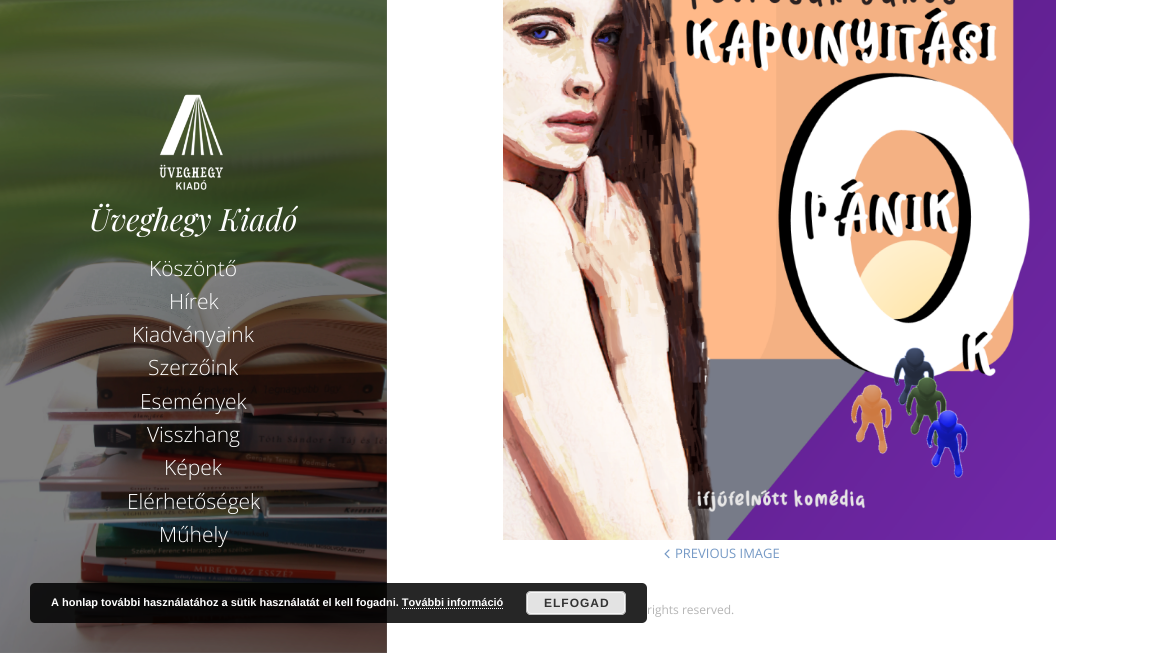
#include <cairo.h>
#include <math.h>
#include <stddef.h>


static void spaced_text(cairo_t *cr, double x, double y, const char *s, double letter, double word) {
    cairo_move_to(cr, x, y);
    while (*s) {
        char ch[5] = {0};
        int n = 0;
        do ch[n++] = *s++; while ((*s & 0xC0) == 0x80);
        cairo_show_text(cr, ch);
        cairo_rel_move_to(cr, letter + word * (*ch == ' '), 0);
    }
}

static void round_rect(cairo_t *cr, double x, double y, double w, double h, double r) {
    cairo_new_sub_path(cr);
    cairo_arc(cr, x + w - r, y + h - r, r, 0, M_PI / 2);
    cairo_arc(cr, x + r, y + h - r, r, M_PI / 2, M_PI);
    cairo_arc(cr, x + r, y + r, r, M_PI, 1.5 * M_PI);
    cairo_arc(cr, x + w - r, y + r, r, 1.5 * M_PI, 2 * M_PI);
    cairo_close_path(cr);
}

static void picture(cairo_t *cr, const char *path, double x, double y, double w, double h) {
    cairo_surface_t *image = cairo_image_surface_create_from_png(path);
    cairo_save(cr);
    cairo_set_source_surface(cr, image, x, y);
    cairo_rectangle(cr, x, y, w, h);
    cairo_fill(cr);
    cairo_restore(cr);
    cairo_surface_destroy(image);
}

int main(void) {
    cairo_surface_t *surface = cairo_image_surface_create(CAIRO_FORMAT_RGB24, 1172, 653);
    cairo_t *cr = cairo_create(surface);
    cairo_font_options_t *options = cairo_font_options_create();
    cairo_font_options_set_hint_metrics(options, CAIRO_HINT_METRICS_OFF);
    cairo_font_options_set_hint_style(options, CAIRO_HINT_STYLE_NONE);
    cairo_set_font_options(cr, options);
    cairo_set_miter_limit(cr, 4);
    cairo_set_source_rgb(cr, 1, 1, 1);
    cairo_paint(cr);
    cairo_set_source_rgb(cr, 0.502, 0.502, 0.502);
    cairo_rectangle(cr, 0, 0, 387, 653);
    cairo_fill(cr);
    picture(cr, "img1.png", 0, 0, 387, 653);
    picture(cr, "img2.png", 159, 94, 65, 96);
    cairo_select_font_face(cr, "Playfair Display", CAIRO_FONT_SLANT_ITALIC, CAIRO_FONT_WEIGHT_NORMAL);
    cairo_set_font_size(cr, 30.75);
    cairo_set_source_rgb(cr, 1, 1, 1);
    cairo_move_to(cr, 89, 231);
    cairo_show_text(cr, "Üveghegy Kiadó");
    cairo_select_font_face(cr, "Open Sans Light", CAIRO_FONT_SLANT_NORMAL, CAIRO_FONT_WEIGHT_NORMAL);
    cairo_set_font_size(cr, 21);
    cairo_move_to(cr, 149, 276);
    cairo_show_text(cr, "Köszöntő");
    cairo_move_to(cr, 169, 309);
    cairo_show_text(cr, "Hírek");
    cairo_move_to(cr, 132, 342);
    cairo_show_text(cr, "Kiadványaink");
    cairo_move_to(cr, 148, 375);
    cairo_show_text(cr, "Szerzőink");
    cairo_move_to(cr, 140, 409);
    cairo_show_text(cr, "Események");
    cairo_move_to(cr, 147, 442);
    cairo_show_text(cr, "Visszhang");
    cairo_move_to(cr, 164, 475);
    cairo_show_text(cr, "Képek");
    cairo_move_to(cr, 127, 509);
    cairo_show_text(cr, "Elérhetőségek");
    cairo_move_to(cr, 159, 542);
    cairo_show_text(cr, "Műhely");
    picture(cr, "img3.png", 503, 0, 553, 540);
    picture(cr, "img4.png", 664, 549, 6, 10);
    cairo_select_font_face(cr, "Open Sans", CAIRO_FONT_SLANT_NORMAL, CAIRO_FONT_WEIGHT_NORMAL);
    cairo_set_font_size(cr, 13);
    cairo_set_source_rgb(cr, 0.459, 0.6, 0.773);
    cairo_move_to(cr, 675, 558);
    cairo_show_text(cr, "PREVIOUS IMAGE");
    cairo_set_font_size(cr, 12);
    cairo_set_source_rgb(cr, 0.71, 0.71, 0.71);
    cairo_move_to(cr, 647, 614);
    cairo_show_text(cr, "rights reserved.");
    cairo_set_source_rgba(cr, 0, 0, 0, 0.85);
    round_rect(cr, 30, 583, 617, 40, 5);
    cairo_fill(cr);
    cairo_select_font_face(cr, "Liberation Sans", CAIRO_FONT_SLANT_NORMAL, CAIRO_FONT_WEIGHT_BOLD);
    cairo_set_font_size(cr, 11);
    cairo_set_source_rgb(cr, 1, 1, 1);
    cairo_move_to(cr, 51, 606);
    cairo_show_text(cr, "A honlap további használatához a sütik használatát el kell fogadni. További információ");
    cairo_set_source_rgb(cr, 0.89, 0.89, 0.89);
    round_rect(cr, 526, 591, 100, 24, 5);
    cairo_fill(cr);
    round_rect(cr, 527.5, 592.5, 97, 21, 3.5);
    cairo_set_source_rgb(cr, 0.965, 0.965, 0.965);
    cairo_set_line_width(cr, 1);
    cairo_stroke(cr);
    round_rect(cr, 526.5, 591.5, 99, 23, 4.5);
    cairo_set_source_rgb(cr, 0.733, 0.733, 0.733);
    cairo_stroke(cr);
    cairo_set_font_size(cr, 12);
    cairo_set_source_rgb(cr, 0.2, 0.2, 0.2);
    spaced_text(cr, 544, 607, "ELFOGAD", 1, 0);
    cairo_new_path(cr);
    cairo_move_to(cr, 402, 608.5);
    cairo_line_to(cr, 503, 608.5);
    cairo_set_source_rgb(cr, 1, 1, 1);
    cairo_set_dash(cr, (double[]){1, 1}, 2, 0);
    cairo_stroke(cr);
    cairo_surface_write_to_png(surface, "page.png");
    cairo_font_options_destroy(options);
    cairo_destroy(cr);
    cairo_surface_destroy(surface);
    return 0;
}
